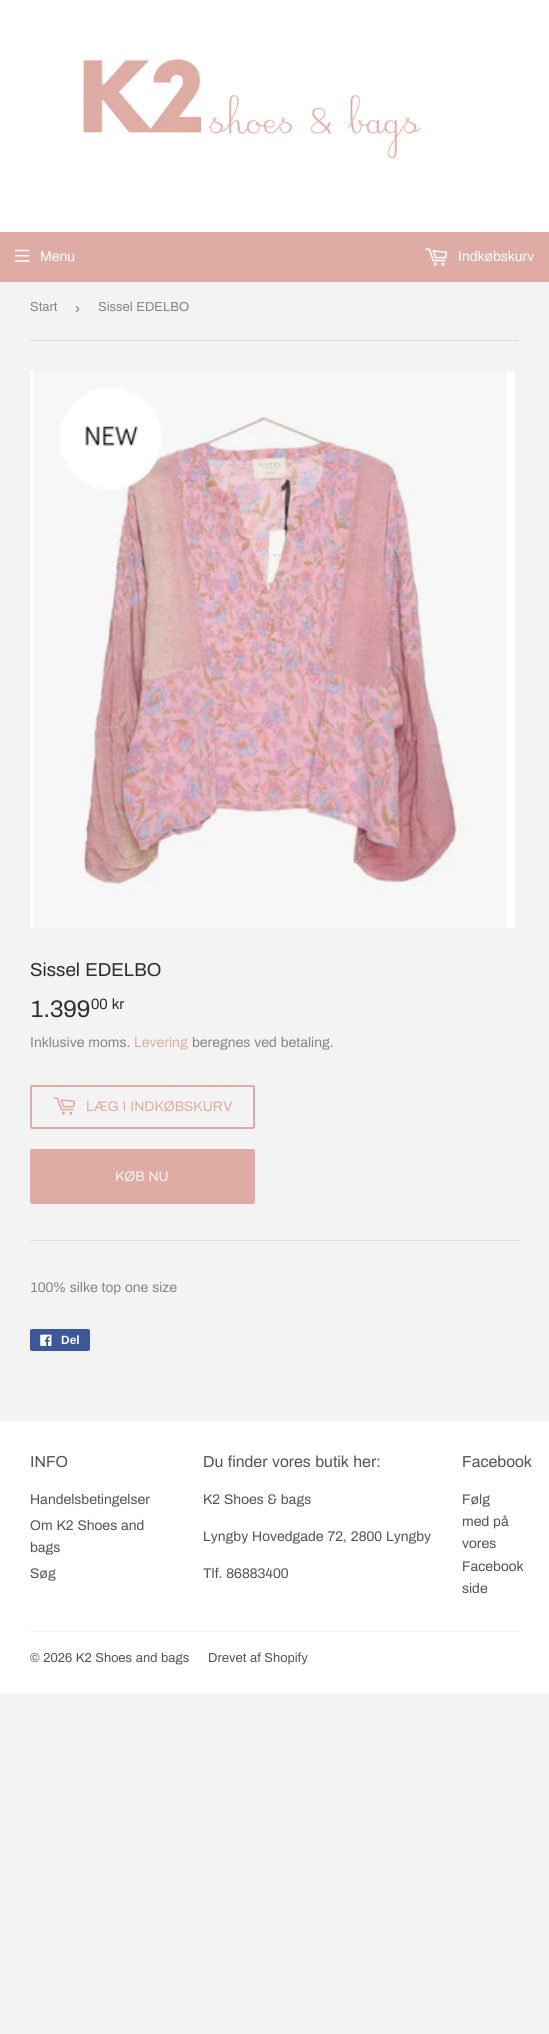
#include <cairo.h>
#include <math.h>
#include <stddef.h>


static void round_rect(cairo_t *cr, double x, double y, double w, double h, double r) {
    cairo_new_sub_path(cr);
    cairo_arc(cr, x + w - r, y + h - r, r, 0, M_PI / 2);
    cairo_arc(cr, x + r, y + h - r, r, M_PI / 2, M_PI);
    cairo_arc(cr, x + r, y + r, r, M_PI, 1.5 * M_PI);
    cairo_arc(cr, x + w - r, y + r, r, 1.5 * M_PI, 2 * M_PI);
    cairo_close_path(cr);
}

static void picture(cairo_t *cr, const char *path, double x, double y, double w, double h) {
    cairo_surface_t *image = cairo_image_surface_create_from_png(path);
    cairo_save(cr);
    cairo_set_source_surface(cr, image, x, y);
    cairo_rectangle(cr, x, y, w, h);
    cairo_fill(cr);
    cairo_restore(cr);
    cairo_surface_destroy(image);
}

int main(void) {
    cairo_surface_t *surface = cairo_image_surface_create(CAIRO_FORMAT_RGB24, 549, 2034);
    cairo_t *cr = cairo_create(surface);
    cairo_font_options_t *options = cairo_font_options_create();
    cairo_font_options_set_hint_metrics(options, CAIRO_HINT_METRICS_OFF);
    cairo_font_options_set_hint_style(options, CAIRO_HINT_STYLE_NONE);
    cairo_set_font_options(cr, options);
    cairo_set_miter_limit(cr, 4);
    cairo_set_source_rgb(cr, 0.953, 0.953, 0.953);
    cairo_paint(cr);
    cairo_set_source_rgb(cr, 1, 1, 1);
    cairo_rectangle(cr, 0, 0, 549, 232);
    cairo_fill(cr);
    picture(cr, "img1.png", 83, 59, 339, 100);
    cairo_set_source_rgb(cr, 0.871, 0.675, 0.643);
    cairo_rectangle(cr, 0, 232, 549, 50);
    cairo_fill(cr);
    picture(cr, "img2.png", 15, 249, 15, 13);
    cairo_select_font_face(cr, "Archivo", CAIRO_FONT_SLANT_NORMAL, CAIRO_FONT_WEIGHT_NORMAL);
    cairo_set_font_size(cr, 14);
    cairo_set_source_rgb(cr, 1, 1, 1);
    cairo_move_to(cr, 40, 261);
    cairo_show_text(cr, "Menu");
    picture(cr, "img3.png", 425, 248, 23, 18);
    cairo_move_to(cr, 458, 261);
    cairo_show_text(cr, "Indkøbskurv");
    cairo_set_source_rgb(cr, 0.871, 0.871, 0.871);
    cairo_rectangle(cr, 30, 340, 489, 1);
    cairo_fill(cr);
    cairo_set_font_size(cr, 13);
    cairo_set_source_rgb(cr, 0.522, 0.522, 0.522);
    cairo_move_to(cr, 30, 311);
    cairo_show_text(cr, "Start");
    cairo_select_font_face(cr, "Liberation Sans", CAIRO_FONT_SLANT_NORMAL, CAIRO_FONT_WEIGHT_NORMAL);
    cairo_set_font_size(cr, 15);
    cairo_set_source_rgb(cr, 0.463, 0.463, 0.463);
    cairo_move_to(cr, 75, 313);
    cairo_show_text(cr, "›");
    cairo_select_font_face(cr, "Archivo", CAIRO_FONT_SLANT_NORMAL, CAIRO_FONT_WEIGHT_NORMAL);
    cairo_set_font_size(cr, 13);
    cairo_set_source_rgb(cr, 0.522, 0.522, 0.522);
    cairo_move_to(cr, 98, 311);
    cairo_show_text(cr, "Sissel EDELBO");
    picture(cr, "img4.png", 30, 371, 485, 557);
    cairo_set_font_size(cr, 18.75);
    cairo_set_source_rgb(cr, 0.184, 0.184, 0.184);
    cairo_move_to(cr, 30, 976);
    cairo_show_text(cr, "Sissel EDELBO");
    cairo_set_font_size(cr, 24);
    cairo_move_to(cr, 30, 1017);
    cairo_show_text(cr, "1.399");
    cairo_set_font_size(cr, 15);
    cairo_move_to(cr, 91, 1009);
    cairo_show_text(cr, "00 kr");
    cairo_set_font_size(cr, 14);
    cairo_set_source_rgb(cr, 0.522, 0.522, 0.522);
    cairo_move_to(cr, 30, 1047);
    cairo_show_text(cr, "Inklusive moms.");
    cairo_set_source_rgb(cr, 0.871, 0.675, 0.643);
    cairo_move_to(cr, 134, 1047);
    cairo_show_text(cr, "Levering");
    cairo_set_source_rgb(cr, 0.522, 0.522, 0.522);
    cairo_move_to(cr, 192, 1047);
    cairo_show_text(cr, "beregnes ved betaling.");
    round_rect(cr, 31, 1086, 223, 42, 1);
    cairo_set_source_rgb(cr, 0.871, 0.675, 0.643);
    cairo_stroke(cr);
    picture(cr, "img5.png", 53, 1097, 23, 18);
    cairo_move_to(cr, 86, 1111);
    cairo_show_text(cr, "LÆG I INDKØBSKURV");
    round_rect(cr, 30, 1149, 225, 55, 2);
    cairo_fill(cr);
    cairo_set_source_rgb(cr, 0.953, 0.953, 0.953);
    cairo_move_to(cr, 115, 1181);
    cairo_show_text(cr, "KØB NU");
    cairo_set_source_rgb(cr, 0.871, 0.871, 0.871);
    cairo_rectangle(cr, 30, 1240, 489, 1);
    cairo_fill(cr);
    cairo_set_source_rgb(cr, 0.522, 0.522, 0.522);
    cairo_move_to(cr, 30, 1292);
    cairo_show_text(cr, "100% silke top one size");
    cairo_set_source_rgb(cr, 0.231, 0.349, 0.596);
    round_rect(cr, 30, 1329, 60, 22, 2);
    cairo_fill(cr);
    picture(cr, "img6.png", 40, 1334, 12, 12);
    cairo_select_font_face(cr, "Liberation Sans", CAIRO_FONT_SLANT_NORMAL, CAIRO_FONT_WEIGHT_BOLD);
    cairo_set_font_size(cr, 12);
    cairo_set_source_rgb(cr, 1, 1, 1);
    cairo_move_to(cr, 61, 1344);
    cairo_show_text(cr, "Del");
    cairo_rectangle(cr, 0, 1421, 549, 273);
    cairo_fill(cr);
    cairo_select_font_face(cr, "Archivo", CAIRO_FONT_SLANT_NORMAL, CAIRO_FONT_WEIGHT_NORMAL);
    cairo_set_font_size(cr, 15.9);
    cairo_set_source_rgb(cr, 0.329, 0.329, 0.329);
    cairo_move_to(cr, 30, 1467);
    cairo_show_text(cr, "INFO");
    cairo_set_font_size(cr, 14);
    cairo_move_to(cr, 30, 1504);
    cairo_show_text(cr, "Handelsbetingelser");
    cairo_move_to(cr, 30, 1530);
    cairo_show_text(cr, "Om K2 Shoes and");
    cairo_move_to(cr, 30, 1552);
    cairo_show_text(cr, "bags");
    cairo_move_to(cr, 30, 1578);
    cairo_show_text(cr, "Søg");
    cairo_set_font_size(cr, 15.9);
    cairo_move_to(cr, 203, 1467);
    cairo_show_text(cr, "Du finder vores butik her:");
    cairo_set_font_size(cr, 14);
    cairo_move_to(cr, 203, 1504);
    cairo_show_text(cr, "K2 Shoes & bags");
    cairo_move_to(cr, 203, 1541);
    cairo_show_text(cr, "Lyngby Hovedgade 72, 2800 Lyngby");
    cairo_move_to(cr, 203, 1578);
    cairo_show_text(cr, "Tlf. 86883400");
    cairo_set_font_size(cr, 15.9);
    cairo_move_to(cr, 462, 1467);
    cairo_show_text(cr, "Facebook");
    cairo_set_font_size(cr, 14);
    cairo_move_to(cr, 462, 1504);
    cairo_show_text(cr, "Følg");
    cairo_move_to(cr, 462, 1526);
    cairo_show_text(cr, "med på");
    cairo_move_to(cr, 462, 1548);
    cairo_show_text(cr, "vores");
    cairo_move_to(cr, 462, 1571);
    cairo_show_text(cr, "Facebook");
    cairo_move_to(cr, 462, 1593);
    cairo_show_text(cr, "side");
    cairo_set_source_rgb(cr, 0.949, 0.949, 0.949);
    cairo_rectangle(cr, 30, 1631, 489, 1);
    cairo_fill(cr);
    cairo_set_font_size(cr, 13);
    cairo_set_source_rgb(cr, 0.329, 0.329, 0.329);
    cairo_move_to(cr, 30, 1662);
    cairo_show_text(cr, "© 2026 K2 Shoes and bags");
    cairo_move_to(cr, 208, 1662);
    cairo_show_text(cr, "Drevet af Shopify");
    cairo_surface_write_to_png(surface, "page.png");
    cairo_font_options_destroy(options);
    cairo_destroy(cr);
    cairo_surface_destroy(surface);
    return 0;
}
